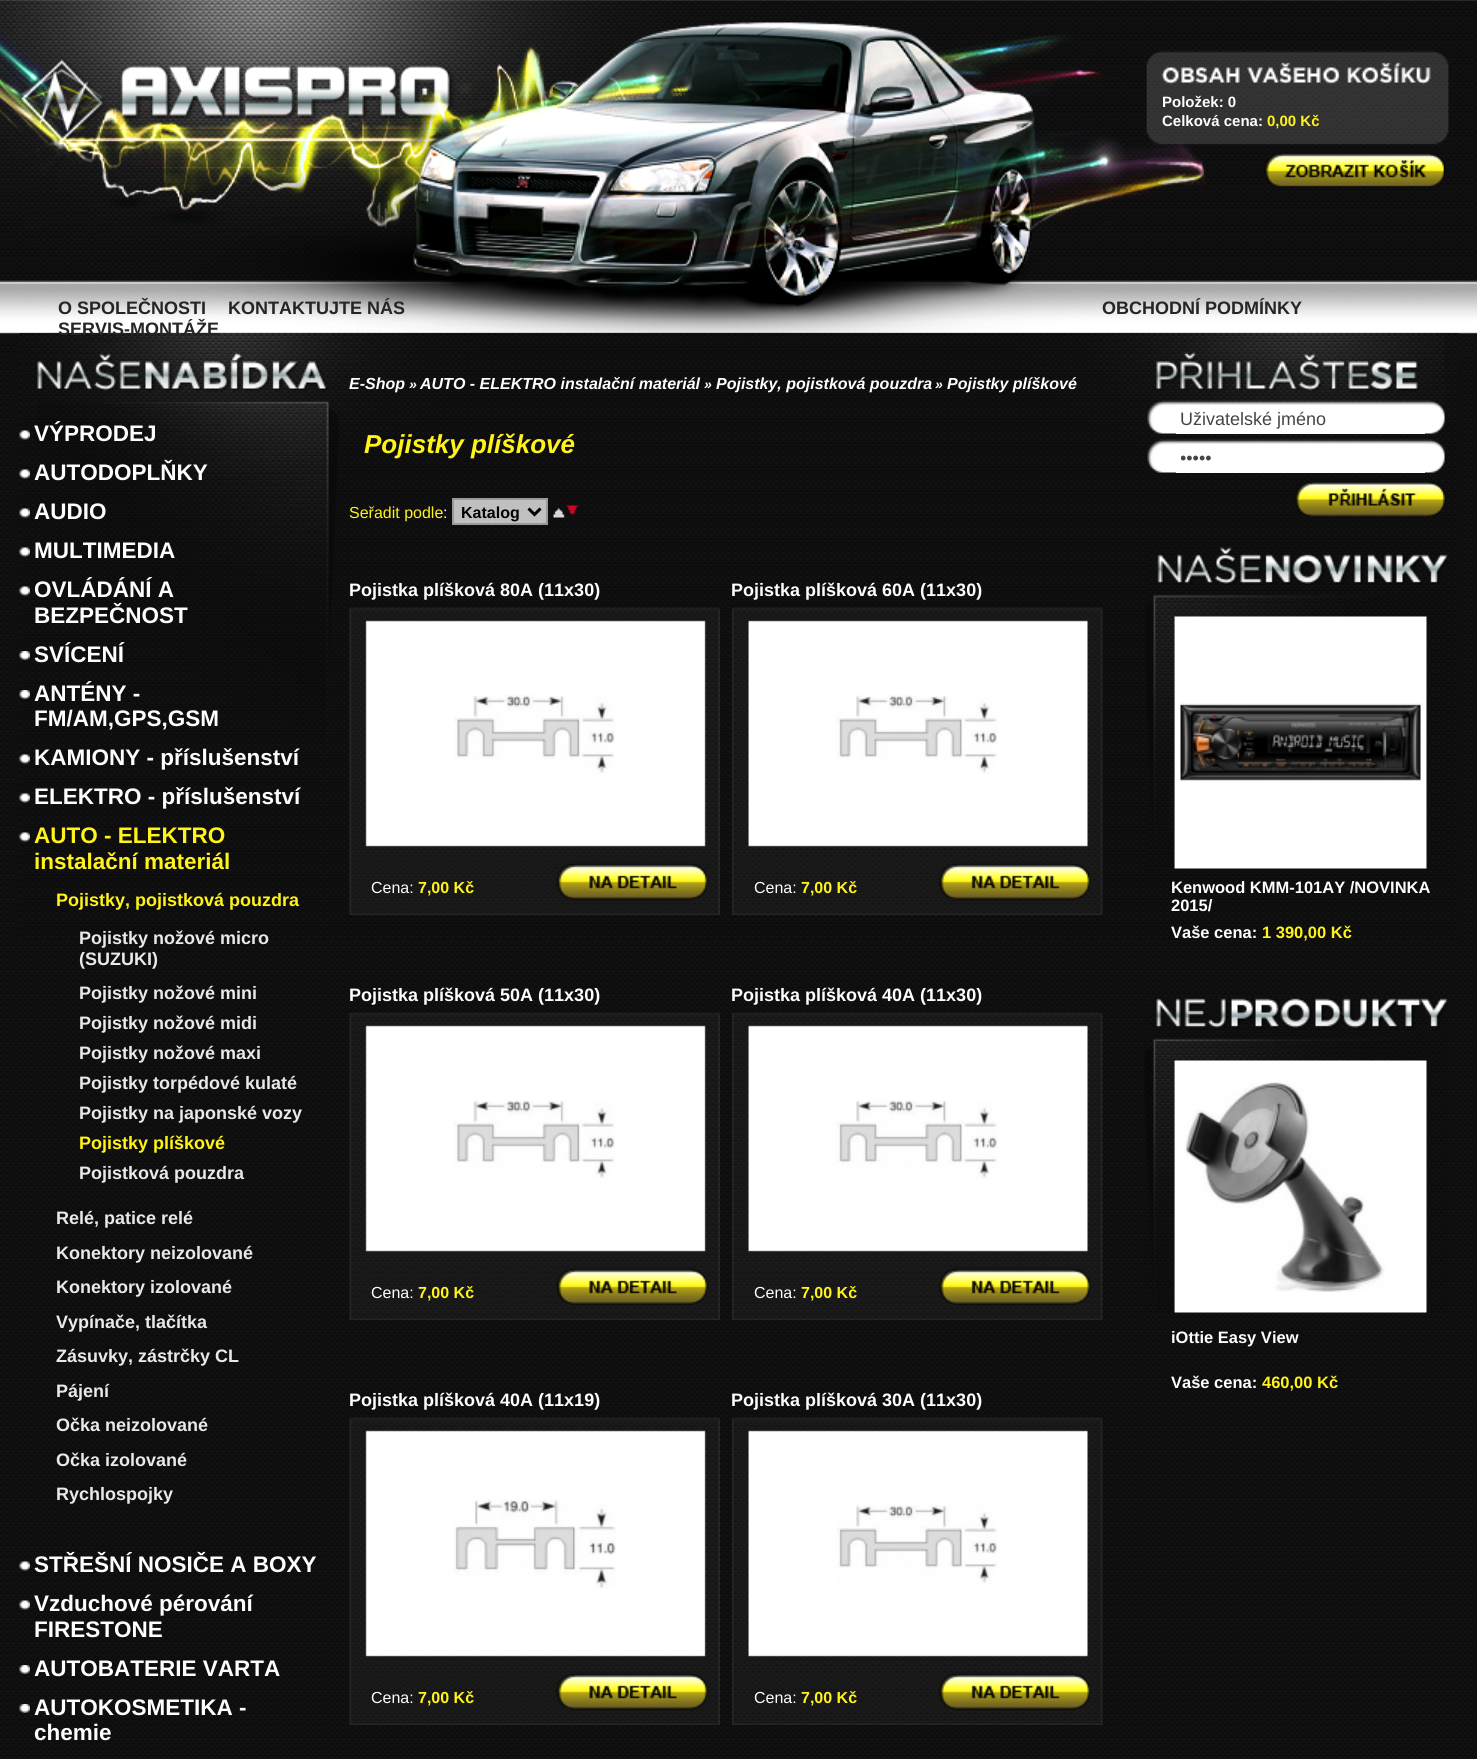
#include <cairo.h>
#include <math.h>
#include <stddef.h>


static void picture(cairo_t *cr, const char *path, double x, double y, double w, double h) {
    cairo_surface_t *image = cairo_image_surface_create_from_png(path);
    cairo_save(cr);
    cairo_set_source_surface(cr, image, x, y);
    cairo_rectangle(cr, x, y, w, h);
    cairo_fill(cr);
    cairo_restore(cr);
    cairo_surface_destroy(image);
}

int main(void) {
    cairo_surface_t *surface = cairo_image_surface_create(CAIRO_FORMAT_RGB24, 1477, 1759);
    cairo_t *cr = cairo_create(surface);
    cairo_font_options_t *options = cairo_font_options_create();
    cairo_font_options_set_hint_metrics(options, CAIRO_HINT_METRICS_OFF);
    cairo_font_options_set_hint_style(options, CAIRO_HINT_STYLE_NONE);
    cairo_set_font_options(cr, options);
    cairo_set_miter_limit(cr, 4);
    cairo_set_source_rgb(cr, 1, 1, 1);
    cairo_paint(cr);
    picture(cr, "img1.png", 0, 1758, 1477, 1);
    picture(cr, "img2.png", 0, 357, 1477, 1401);
    picture(cr, "img3.png", 0, 0, 1477, 357);
    cairo_select_font_face(cr, "Liberation Sans", CAIRO_FONT_SLANT_NORMAL, CAIRO_FONT_WEIGHT_BOLD);
    cairo_set_font_size(cr, 15);
    cairo_set_source_rgb(cr, 0.996, 0.996, 0.996);
    cairo_move_to(cr, 1162, 107);
    cairo_show_text(cr, "Položek: 0");
    cairo_move_to(cr, 1162, 126);
    cairo_show_text(cr, "Celková cena:");
    cairo_set_source_rgb(cr, 1, 0.953, 0.098);
    cairo_move_to(cr, 1267, 126);
    cairo_show_text(cr, "0,00 Kč");
    cairo_set_font_size(cr, 18);
    cairo_set_source_rgb(cr, 0.145, 0.145, 0.145);
    cairo_move_to(cr, 58, 314);
    cairo_show_text(cr, "O SPOLEČNOSTI");
    cairo_move_to(cr, 228, 314);
    cairo_show_text(cr, "KONTAKTUJTE NÁS");
    cairo_move_to(cr, 1102, 314);
    cairo_show_text(cr, "OBCHODNÍ PODMÍNKY");
    picture(cr, "img4.png", 19, 333, 1441, 606);
    cairo_move_to(cr, 58, 335);
    cairo_show_text(cr, "SERVIS-MONTÁŽE");
    picture(cr, "img5.png", 19, 430, 11, 10);
    cairo_set_font_size(cr, 22.5);
    cairo_set_source_rgb(cr, 0.996, 0.996, 0.996);
    cairo_move_to(cr, 34, 441);
    cairo_show_text(cr, "VÝPRODEJ");
    picture(cr, "img6.png", 19, 469, 11, 10);
    cairo_move_to(cr, 34, 480);
    cairo_show_text(cr, "AUTODOPLŇKY");
    picture(cr, "img5.png", 19, 508, 11, 10);
    cairo_move_to(cr, 34, 519);
    cairo_show_text(cr, "AUDIO");
    picture(cr, "img6.png", 19, 547, 11, 10);
    cairo_move_to(cr, 34, 558);
    cairo_show_text(cr, "MULTIMEDIA");
    picture(cr, "img5.png", 19, 586, 11, 10);
    cairo_move_to(cr, 34, 597);
    cairo_show_text(cr, "OVLÁDÁNÍ A");
    cairo_move_to(cr, 34, 623);
    cairo_show_text(cr, "BEZPEČNOST");
    picture(cr, "img7.png", 19, 651, 11, 9);
    cairo_move_to(cr, 34, 662);
    cairo_show_text(cr, "SVÍCENÍ");
    picture(cr, "img8.png", 19, 690, 11, 9);
    cairo_move_to(cr, 34, 701);
    cairo_show_text(cr, "ANTÉNY -");
    cairo_move_to(cr, 34, 726);
    cairo_show_text(cr, "FM/AM,GPS,GSM");
    picture(cr, "img5.png", 19, 754, 11, 10);
    cairo_move_to(cr, 34, 765);
    cairo_show_text(cr, "KAMIONY - příslušenství");
    picture(cr, "img6.png", 19, 793, 11, 10);
    cairo_move_to(cr, 34, 804);
    cairo_show_text(cr, "ELEKTRO - příslušenství");
    picture(cr, "img5.png", 19, 832, 11, 10);
    cairo_set_source_rgb(cr, 1, 0.953, 0.098);
    cairo_move_to(cr, 34, 843);
    cairo_show_text(cr, "AUTO - ELEKTRO");
    cairo_move_to(cr, 34, 869);
    cairo_show_text(cr, "instalační materiál");
    cairo_set_font_size(cr, 18);
    cairo_move_to(cr, 56, 906);
    cairo_show_text(cr, "Pojistky, pojistková pouzdra");
    cairo_set_source_rgb(cr, 0.914, 0.914, 0.914);
    cairo_move_to(cr, 79, 944);
    cairo_show_text(cr, "Pojistky nožové micro");
    cairo_move_to(cr, 79, 965);
    cairo_show_text(cr, "(SUZUKI)");
    cairo_move_to(cr, 79, 999);
    cairo_show_text(cr, "Pojistky nožové mini");
    cairo_move_to(cr, 79, 1029);
    cairo_show_text(cr, "Pojistky nožové midi");
    cairo_move_to(cr, 79, 1059);
    cairo_show_text(cr, "Pojistky nožové maxi");
    cairo_move_to(cr, 79, 1089);
    cairo_show_text(cr, "Pojistky torpédové kulaté");
    cairo_move_to(cr, 79, 1119);
    cairo_show_text(cr, "Pojistky na japonské vozy");
    cairo_set_source_rgb(cr, 1, 0.953, 0.098);
    cairo_move_to(cr, 79, 1149);
    cairo_show_text(cr, "Pojistky plíškové");
    cairo_set_source_rgb(cr, 0.914, 0.914, 0.914);
    cairo_move_to(cr, 79, 1179);
    cairo_show_text(cr, "Pojistková pouzdra");
    cairo_move_to(cr, 56, 1224);
    cairo_show_text(cr, "Relé, patice relé");
    cairo_move_to(cr, 56, 1259);
    cairo_show_text(cr, "Konektory neizolované");
    cairo_move_to(cr, 56, 1293);
    cairo_show_text(cr, "Konektory izolované");
    cairo_move_to(cr, 56, 1328);
    cairo_show_text(cr, "Vypínače, tlačítka");
    cairo_move_to(cr, 56, 1362);
    cairo_show_text(cr, "Zásuvky, zástrčky CL");
    cairo_move_to(cr, 56, 1397);
    cairo_show_text(cr, "Pájení");
    cairo_move_to(cr, 56, 1431);
    cairo_show_text(cr, "Očka neizolované");
    cairo_move_to(cr, 56, 1466);
    cairo_show_text(cr, "Očka izolované");
    cairo_move_to(cr, 56, 1500);
    cairo_show_text(cr, "Rychlospojky");
    picture(cr, "img9.png", 19, 1561, 11, 10);
    cairo_set_font_size(cr, 22.5);
    cairo_set_source_rgb(cr, 0.996, 0.996, 0.996);
    cairo_move_to(cr, 34, 1572);
    cairo_show_text(cr, "STŘEŠNÍ NOSIČE A BOXY");
    picture(cr, "img10.png", 19, 1600, 11, 10);
    cairo_move_to(cr, 34, 1611);
    cairo_show_text(cr, "Vzduchové pérování");
    cairo_move_to(cr, 34, 1637);
    cairo_show_text(cr, "FIRESTONE");
    picture(cr, "img11.png", 19, 1665, 11, 9);
    cairo_move_to(cr, 34, 1676);
    cairo_show_text(cr, "AUTOBATERIE VARTA");
    picture(cr, "img12.png", 19, 1704, 11, 9);
    cairo_move_to(cr, 34, 1715);
    cairo_show_text(cr, "AUTOKOSMETIKA -");
    cairo_move_to(cr, 34, 1740);
    cairo_show_text(cr, "chemie");
    cairo_select_font_face(cr, "Liberation Sans", CAIRO_FONT_SLANT_ITALIC, CAIRO_FONT_WEIGHT_BOLD);
    cairo_set_font_size(cr, 16);
    cairo_move_to(cr, 349, 389);
    cairo_show_text(cr, "E-Shop");
    cairo_set_font_size(cr, 14);
    cairo_move_to(cr, 409, 389);
    cairo_show_text(cr, "»");
    cairo_set_font_size(cr, 16);
    cairo_move_to(cr, 420, 389);
    cairo_show_text(cr, "AUTO - ELEKTRO instalační materiál");
    cairo_set_font_size(cr, 14);
    cairo_move_to(cr, 704, 389);
    cairo_show_text(cr, "»");
    cairo_set_font_size(cr, 16);
    cairo_move_to(cr, 716, 389);
    cairo_show_text(cr, "Pojistky, pojistková pouzdra");
    cairo_set_font_size(cr, 14);
    cairo_move_to(cr, 935, 389);
    cairo_show_text(cr, "»");
    cairo_set_font_size(cr, 16);
    cairo_move_to(cr, 947, 389);
    cairo_show_text(cr, "Pojistky plíškové");
    cairo_set_font_size(cr, 26);
    cairo_set_source_rgb(cr, 1, 0.953, 0.098);
    cairo_move_to(cr, 364, 453);
    cairo_show_text(cr, "Pojistky plíškové");
    cairo_select_font_face(cr, "Liberation Sans", CAIRO_FONT_SLANT_NORMAL, CAIRO_FONT_WEIGHT_NORMAL);
    cairo_set_font_size(cr, 16);
    cairo_move_to(cr, 349, 518);
    cairo_show_text(cr, "Seřadit podle");
    cairo_set_source_rgb(cr, 0.996, 0.996, 0.996);
    cairo_move_to(cr, 443, 518);
    cairo_show_text(cr, ":");
    cairo_set_source_rgb(cr, 0.753, 0.753, 0.753);
    cairo_rectangle(cr, 453, 499, 94, 25);
    cairo_fill_preserve(cr);
    cairo_set_source_rgb(cr, 0.6, 0.6, 0.6);
    cairo_stroke(cr);
    cairo_new_path(cr);
    cairo_move_to(cr, 528.5, 508.5);
    cairo_line_to(cr, 534.5, 514.5);
    cairo_line_to(cr, 540.5, 508.5);
    cairo_set_source_rgb(cr, 0, 0, 0);
    cairo_set_line_width(cr, 3);
    cairo_stroke(cr);
    cairo_select_font_face(cr, "Liberation Sans", CAIRO_FONT_SLANT_NORMAL, CAIRO_FONT_WEIGHT_BOLD);
    cairo_move_to(cr, 461, 518);
    cairo_show_text(cr, "Katalog");
    picture(cr, "img13.png", 553, 508, 12, 10);
    picture(cr, "img14.png", 566, 505, 12, 10);
    picture(cr, "img15.png", 349, 607, 371, 308);
    cairo_set_font_size(cr, 18);
    cairo_set_source_rgb(cr, 0.996, 0.996, 0.996);
    cairo_move_to(cr, 349, 596);
    cairo_show_text(cr, "Pojistka plíšková 80A (11x30)");
    picture(cr, "img16.png", 454, 695, 161, 79);
    cairo_select_font_face(cr, "Liberation Sans", CAIRO_FONT_SLANT_NORMAL, CAIRO_FONT_WEIGHT_NORMAL);
    cairo_set_font_size(cr, 16);
    cairo_move_to(cr, 371, 893);
    cairo_show_text(cr, "Cena:");
    cairo_select_font_face(cr, "Liberation Sans", CAIRO_FONT_SLANT_NORMAL, CAIRO_FONT_WEIGHT_BOLD);
    cairo_set_source_rgb(cr, 1, 0.953, 0.098);
    cairo_move_to(cr, 418, 893);
    cairo_show_text(cr, "7,00 Kč");
    picture(cr, "img17.png", 732, 607, 371, 308);
    cairo_set_font_size(cr, 18);
    cairo_set_source_rgb(cr, 0.996, 0.996, 0.996);
    cairo_move_to(cr, 731, 596);
    cairo_show_text(cr, "Pojistka plíšková 60A (11x30)");
    picture(cr, "img18.png", 836, 695, 162, 79);
    cairo_select_font_face(cr, "Liberation Sans", CAIRO_FONT_SLANT_NORMAL, CAIRO_FONT_WEIGHT_NORMAL);
    cairo_set_font_size(cr, 16);
    cairo_move_to(cr, 754, 893);
    cairo_show_text(cr, "Cena:");
    cairo_select_font_face(cr, "Liberation Sans", CAIRO_FONT_SLANT_NORMAL, CAIRO_FONT_WEIGHT_BOLD);
    cairo_set_source_rgb(cr, 1, 0.953, 0.098);
    cairo_move_to(cr, 801, 893);
    cairo_show_text(cr, "7,00 Kč");
    picture(cr, "img19.png", 349, 1012, 371, 308);
    cairo_set_font_size(cr, 18);
    cairo_set_source_rgb(cr, 0.996, 0.996, 0.996);
    cairo_move_to(cr, 349, 1001);
    cairo_show_text(cr, "Pojistka plíšková 50A (11x30)");
    picture(cr, "img16.png", 454, 1100, 161, 79);
    cairo_select_font_face(cr, "Liberation Sans", CAIRO_FONT_SLANT_NORMAL, CAIRO_FONT_WEIGHT_NORMAL);
    cairo_set_font_size(cr, 16);
    cairo_move_to(cr, 371, 1298);
    cairo_show_text(cr, "Cena:");
    cairo_select_font_face(cr, "Liberation Sans", CAIRO_FONT_SLANT_NORMAL, CAIRO_FONT_WEIGHT_BOLD);
    cairo_set_source_rgb(cr, 1, 0.953, 0.098);
    cairo_move_to(cr, 418, 1298);
    cairo_show_text(cr, "7,00 Kč");
    picture(cr, "img20.png", 732, 1012, 371, 308);
    cairo_set_font_size(cr, 18);
    cairo_set_source_rgb(cr, 0.996, 0.996, 0.996);
    cairo_move_to(cr, 731, 1001);
    cairo_show_text(cr, "Pojistka plíšková 40A (11x30)");
    picture(cr, "img18.png", 836, 1100, 162, 79);
    cairo_select_font_face(cr, "Liberation Sans", CAIRO_FONT_SLANT_NORMAL, CAIRO_FONT_WEIGHT_NORMAL);
    cairo_set_font_size(cr, 16);
    cairo_move_to(cr, 754, 1298);
    cairo_show_text(cr, "Cena:");
    cairo_select_font_face(cr, "Liberation Sans", CAIRO_FONT_SLANT_NORMAL, CAIRO_FONT_WEIGHT_BOLD);
    cairo_set_source_rgb(cr, 1, 0.953, 0.098);
    cairo_move_to(cr, 801, 1298);
    cairo_show_text(cr, "7,00 Kč");
    picture(cr, "img21.png", 349, 1417, 371, 308);
    cairo_set_font_size(cr, 18);
    cairo_set_source_rgb(cr, 0.996, 0.996, 0.996);
    cairo_move_to(cr, 349, 1406);
    cairo_show_text(cr, "Pojistka plíšková 40A (11x19)");
    picture(cr, "img22.png", 453, 1499, 163, 90);
    cairo_select_font_face(cr, "Liberation Sans", CAIRO_FONT_SLANT_NORMAL, CAIRO_FONT_WEIGHT_NORMAL);
    cairo_set_font_size(cr, 16);
    cairo_move_to(cr, 371, 1703);
    cairo_show_text(cr, "Cena:");
    cairo_select_font_face(cr, "Liberation Sans", CAIRO_FONT_SLANT_NORMAL, CAIRO_FONT_WEIGHT_BOLD);
    cairo_set_source_rgb(cr, 1, 0.953, 0.098);
    cairo_move_to(cr, 418, 1703);
    cairo_show_text(cr, "7,00 Kč");
    picture(cr, "img23.png", 732, 1417, 371, 308);
    cairo_set_font_size(cr, 18);
    cairo_set_source_rgb(cr, 0.996, 0.996, 0.996);
    cairo_move_to(cr, 731, 1406);
    cairo_show_text(cr, "Pojistka plíšková 30A (11x30)");
    picture(cr, "img18.png", 836, 1505, 162, 79);
    cairo_select_font_face(cr, "Liberation Sans", CAIRO_FONT_SLANT_NORMAL, CAIRO_FONT_WEIGHT_NORMAL);
    cairo_set_font_size(cr, 16);
    cairo_move_to(cr, 754, 1703);
    cairo_show_text(cr, "Cena:");
    cairo_select_font_face(cr, "Liberation Sans", CAIRO_FONT_SLANT_NORMAL, CAIRO_FONT_WEIGHT_BOLD);
    cairo_set_source_rgb(cr, 1, 0.953, 0.098);
    cairo_move_to(cr, 801, 1703);
    cairo_show_text(cr, "7,00 Kč");
    cairo_set_source_rgb(cr, 1, 1, 1);
    cairo_rectangle(cr, 1176, 405, 249, 29);
    cairo_fill(cr);
    cairo_select_font_face(cr, "Liberation Sans", CAIRO_FONT_SLANT_NORMAL, CAIRO_FONT_WEIGHT_NORMAL);
    cairo_set_font_size(cr, 18);
    cairo_set_source_rgb(cr, 0.271, 0.271, 0.271);
    cairo_move_to(cr, 1180, 425);
    cairo_show_text(cr, "Uživatelské jméno");
    cairo_set_source_rgb(cr, 1, 1, 1);
    cairo_rectangle(cr, 1176, 444, 249, 29);
    cairo_fill(cr);
    cairo_save(cr);
    cairo_rectangle(cr, 1181, 449, 240, 21);
    cairo_clip(cr);
    cairo_set_source_rgb(cr, 0.271, 0.271, 0.271);
    cairo_move_to(cr, 1180, 464);
    cairo_show_text(cr, "•••••");
    cairo_restore(cr);
    picture(cr, "img24.png", 1295, 481, 151, 36);
    picture(cr, "img25.png", 1145, 547, 303, 322);
    picture(cr, "img26.png", 1180, 703, 241, 78);
    cairo_select_font_face(cr, "Liberation Sans", CAIRO_FONT_SLANT_NORMAL, CAIRO_FONT_WEIGHT_BOLD);
    cairo_set_font_size(cr, 16.5);
    cairo_set_source_rgb(cr, 0.996, 0.996, 0.996);
    cairo_move_to(cr, 1171, 893);
    cairo_show_text(cr, "Kenwood KMM-101AY /NOVINKA");
    cairo_move_to(cr, 1171, 911);
    cairo_show_text(cr, "2015/");
    cairo_move_to(cr, 1171, 938);
    cairo_show_text(cr, "Vaše cena:");
    cairo_set_source_rgb(cr, 1, 0.953, 0.098);
    cairo_move_to(cr, 1262, 938);
    cairo_show_text(cr, "1 390,00 Kč");
    picture(cr, "img27.png", 1144, 998, 304, 315);
    picture(cr, "img28.png", 1184, 1082, 201, 210);
    cairo_set_source_rgb(cr, 0.996, 0.996, 0.996);
    cairo_move_to(cr, 1171, 1343);
    cairo_show_text(cr, "iOttie Easy View");
    cairo_move_to(cr, 1171, 1388);
    cairo_show_text(cr, "Vaše cena:");
    cairo_set_source_rgb(cr, 1, 0.953, 0.098);
    cairo_move_to(cr, 1262, 1388);
    cairo_show_text(cr, "460,00 Kč");
    cairo_surface_write_to_png(surface, "page.png");
    cairo_font_options_destroy(options);
    cairo_destroy(cr);
    cairo_surface_destroy(surface);
    return 0;
}
